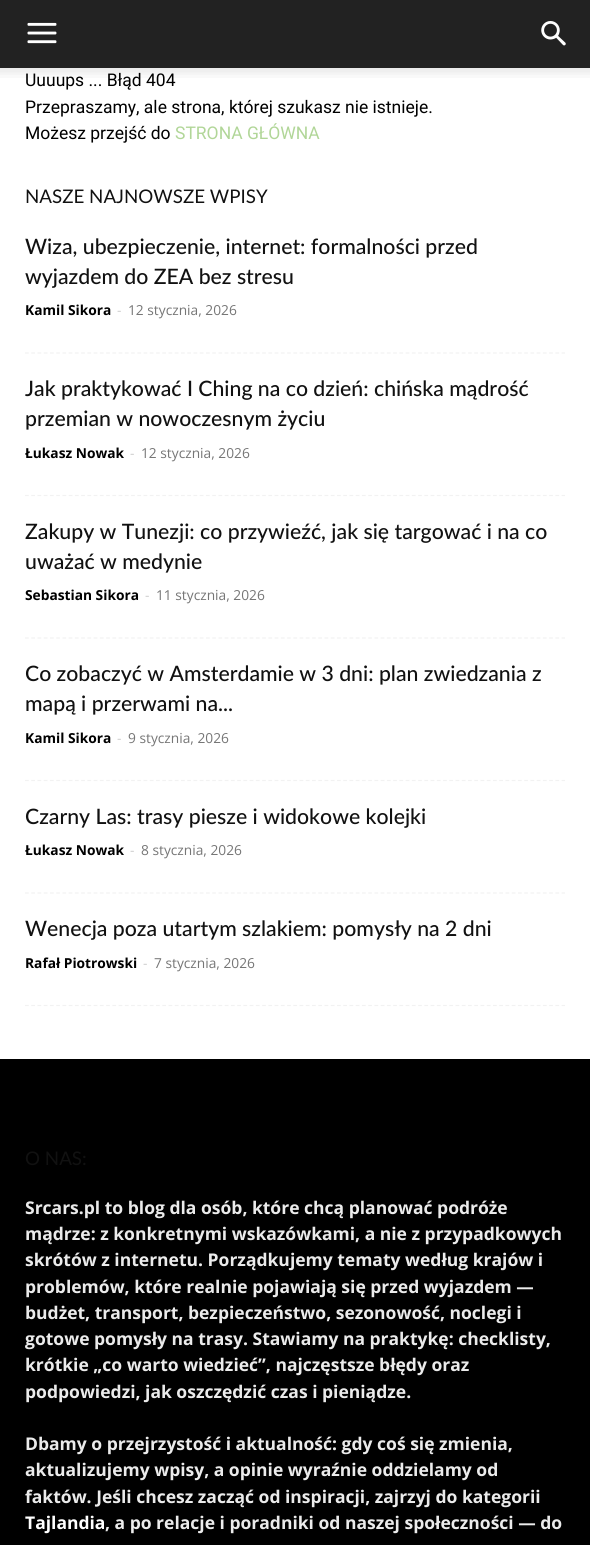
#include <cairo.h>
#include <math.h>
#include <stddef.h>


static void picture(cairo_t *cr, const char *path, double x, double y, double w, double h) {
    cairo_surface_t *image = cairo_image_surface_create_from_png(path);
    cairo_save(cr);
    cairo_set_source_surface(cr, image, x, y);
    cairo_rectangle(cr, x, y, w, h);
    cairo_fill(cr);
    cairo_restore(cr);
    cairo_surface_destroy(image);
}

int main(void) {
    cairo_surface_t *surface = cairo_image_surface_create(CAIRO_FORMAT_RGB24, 590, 1545);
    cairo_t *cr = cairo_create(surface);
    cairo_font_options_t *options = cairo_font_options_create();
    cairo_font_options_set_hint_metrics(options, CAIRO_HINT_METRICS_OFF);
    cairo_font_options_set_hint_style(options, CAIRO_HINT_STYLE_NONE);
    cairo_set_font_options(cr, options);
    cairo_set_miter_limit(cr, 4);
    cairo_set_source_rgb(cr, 1, 1, 1);
    cairo_paint(cr);
    cairo_set_source_rgb(cr, 0.133, 0.133, 0.133);
    cairo_rectangle(cr, 0, 0, 590, 68);
    cairo_fill(cr);
    picture(cr, "img1.png", 27, 22, 30, 22);
    picture(cr, "img2.png", 541, 21, 25, 25);
    cairo_select_font_face(cr, "Roboto", CAIRO_FONT_SLANT_NORMAL, CAIRO_FONT_WEIGHT_NORMAL);
    cairo_set_font_size(cr, 17.5);
    cairo_set_source_rgb(cr, 0, 0, 0);
    cairo_move_to(cr, 25, 86);
    cairo_show_text(cr, "Uuuups ... Błąd 404");
    picture(cr, "img3.png", 0, 68, 590, 10);
    cairo_move_to(cr, 25, 113);
    cairo_show_text(cr, "Przepraszamy, ale strona, której szukasz nie istnieje.");
    cairo_move_to(cr, 25, 139);
    cairo_show_text(cr, "Możesz przejść do");
    cairo_set_source_rgb(cr, 0.694, 0.839, 0.596);
    cairo_move_to(cr, 175, 139);
    cairo_show_text(cr, "STRONA GŁÓWNA");
    cairo_select_font_face(cr, "Lato", CAIRO_FONT_SLANT_NORMAL, CAIRO_FONT_WEIGHT_NORMAL);
    cairo_set_font_size(cr, 18.75);
    cairo_set_source_rgb(cr, 0.067, 0.067, 0.067);
    cairo_move_to(cr, 25, 203);
    cairo_show_text(cr, "NASZE NAJNOWSZE WPISY");
    cairo_new_path(cr);
    cairo_move_to(cr, 25, 353);
    cairo_line_to(cr, 565, 353);
    cairo_set_source_rgb(cr, 0.949, 0.949, 0.949);
    cairo_set_line_width(cr, 1.2);
    cairo_set_dash(cr, (double[]){3.75, 2.49}, 2, 0);
    cairo_stroke(cr);
    cairo_select_font_face(cr, "Lato Medium", CAIRO_FONT_SLANT_NORMAL, CAIRO_FONT_WEIGHT_NORMAL);
    cairo_set_font_size(cr, 21.25);
    cairo_set_source_rgb(cr, 0.067, 0.067, 0.067);
    cairo_move_to(cr, 25, 254);
    cairo_show_text(cr, "Wiza, ubezpieczenie, internet: formalności przed");
    cairo_move_to(cr, 25, 284);
    cairo_show_text(cr, "wyjazdem do ZEA bez stresu");
    cairo_select_font_face(cr, "Open Sans", CAIRO_FONT_SLANT_NORMAL, CAIRO_FONT_WEIGHT_BOLD);
    cairo_set_font_size(cr, 13.75);
    cairo_set_source_rgb(cr, 0, 0, 0);
    cairo_move_to(cr, 25, 315);
    cairo_show_text(cr, "Kamil Sikora");
    cairo_select_font_face(cr, "Open Sans", CAIRO_FONT_SLANT_NORMAL, CAIRO_FONT_WEIGHT_NORMAL);
    cairo_set_source_rgb(cr, 0.8, 0.8, 0.8);
    cairo_move_to(cr, 117, 315);
    cairo_show_text(cr, "-");
    cairo_set_source_rgb(cr, 0.463, 0.463, 0.463);
    cairo_move_to(cr, 128, 315);
    cairo_show_text(cr, "12 stycznia, 2026");
    cairo_new_path(cr);
    cairo_move_to(cr, 25, 495.5);
    cairo_line_to(cr, 565, 495.5);
    cairo_set_source_rgb(cr, 0.949, 0.949, 0.949);
    cairo_stroke(cr);
    cairo_select_font_face(cr, "Lato Medium", CAIRO_FONT_SLANT_NORMAL, CAIRO_FONT_WEIGHT_NORMAL);
    cairo_set_font_size(cr, 21.25);
    cairo_set_source_rgb(cr, 0.067, 0.067, 0.067);
    cairo_move_to(cr, 25, 396);
    cairo_show_text(cr, "Jak praktykować I Ching na co dzień: chińska mądrość");
    cairo_move_to(cr, 25, 426);
    cairo_show_text(cr, "przemian w nowoczesnym życiu");
    cairo_select_font_face(cr, "Open Sans", CAIRO_FONT_SLANT_NORMAL, CAIRO_FONT_WEIGHT_BOLD);
    cairo_set_font_size(cr, 13.75);
    cairo_set_source_rgb(cr, 0, 0, 0);
    cairo_move_to(cr, 25, 458);
    cairo_show_text(cr, "Łukasz Nowak");
    cairo_select_font_face(cr, "Open Sans", CAIRO_FONT_SLANT_NORMAL, CAIRO_FONT_WEIGHT_NORMAL);
    cairo_set_source_rgb(cr, 0.8, 0.8, 0.8);
    cairo_move_to(cr, 130, 458);
    cairo_show_text(cr, "-");
    cairo_set_source_rgb(cr, 0.463, 0.463, 0.463);
    cairo_move_to(cr, 141, 458);
    cairo_show_text(cr, "12 stycznia, 2026");
    cairo_new_path(cr);
    cairo_move_to(cr, 25, 638);
    cairo_line_to(cr, 565, 638);
    cairo_set_source_rgb(cr, 0.949, 0.949, 0.949);
    cairo_stroke(cr);
    cairo_select_font_face(cr, "Lato Medium", CAIRO_FONT_SLANT_NORMAL, CAIRO_FONT_WEIGHT_NORMAL);
    cairo_set_font_size(cr, 21.25);
    cairo_set_source_rgb(cr, 0.067, 0.067, 0.067);
    cairo_move_to(cr, 25, 539);
    cairo_show_text(cr, "Zakupy w Tunezji: co przywieźć, jak się targować i na co");
    cairo_move_to(cr, 25, 569);
    cairo_show_text(cr, "uważać w medynie");
    cairo_select_font_face(cr, "Open Sans", CAIRO_FONT_SLANT_NORMAL, CAIRO_FONT_WEIGHT_BOLD);
    cairo_set_font_size(cr, 13.75);
    cairo_set_source_rgb(cr, 0, 0, 0);
    cairo_move_to(cr, 25, 600);
    cairo_show_text(cr, "Sebastian Sikora");
    cairo_select_font_face(cr, "Open Sans", CAIRO_FONT_SLANT_NORMAL, CAIRO_FONT_WEIGHT_NORMAL);
    cairo_set_source_rgb(cr, 0.8, 0.8, 0.8);
    cairo_move_to(cr, 145, 600);
    cairo_show_text(cr, "-");
    cairo_set_source_rgb(cr, 0.463, 0.463, 0.463);
    cairo_move_to(cr, 156, 600);
    cairo_show_text(cr, "11 stycznia, 2026");
    cairo_new_path(cr);
    cairo_move_to(cr, 25, 780.5);
    cairo_line_to(cr, 565, 780.5);
    cairo_set_source_rgb(cr, 0.949, 0.949, 0.949);
    cairo_stroke(cr);
    cairo_select_font_face(cr, "Lato Medium", CAIRO_FONT_SLANT_NORMAL, CAIRO_FONT_WEIGHT_NORMAL);
    cairo_set_font_size(cr, 21.25);
    cairo_set_source_rgb(cr, 0.067, 0.067, 0.067);
    cairo_move_to(cr, 25, 681);
    cairo_show_text(cr, "Co zobaczyć w Amsterdamie w 3 dni: plan zwiedzania z");
    cairo_move_to(cr, 25, 711);
    cairo_show_text(cr, "mapą i przerwami na...");
    cairo_select_font_face(cr, "Open Sans", CAIRO_FONT_SLANT_NORMAL, CAIRO_FONT_WEIGHT_BOLD);
    cairo_set_font_size(cr, 13.75);
    cairo_set_source_rgb(cr, 0, 0, 0);
    cairo_move_to(cr, 25, 743);
    cairo_show_text(cr, "Kamil Sikora");
    cairo_select_font_face(cr, "Open Sans", CAIRO_FONT_SLANT_NORMAL, CAIRO_FONT_WEIGHT_NORMAL);
    cairo_set_source_rgb(cr, 0.8, 0.8, 0.8);
    cairo_move_to(cr, 117, 743);
    cairo_show_text(cr, "-");
    cairo_set_source_rgb(cr, 0.463, 0.463, 0.463);
    cairo_move_to(cr, 128, 743);
    cairo_show_text(cr, "9 stycznia, 2026");
    cairo_new_path(cr);
    cairo_move_to(cr, 25, 893);
    cairo_line_to(cr, 565, 893);
    cairo_set_source_rgb(cr, 0.949, 0.949, 0.949);
    cairo_stroke(cr);
    cairo_select_font_face(cr, "Lato Medium", CAIRO_FONT_SLANT_NORMAL, CAIRO_FONT_WEIGHT_NORMAL);
    cairo_set_font_size(cr, 21.25);
    cairo_set_source_rgb(cr, 0.067, 0.067, 0.067);
    cairo_move_to(cr, 25, 824);
    cairo_show_text(cr, "Czarny Las: trasy piesze i widokowe kolejki");
    cairo_select_font_face(cr, "Open Sans", CAIRO_FONT_SLANT_NORMAL, CAIRO_FONT_WEIGHT_BOLD);
    cairo_set_font_size(cr, 13.75);
    cairo_set_source_rgb(cr, 0, 0, 0);
    cairo_move_to(cr, 25, 855);
    cairo_show_text(cr, "Łukasz Nowak");
    cairo_select_font_face(cr, "Open Sans", CAIRO_FONT_SLANT_NORMAL, CAIRO_FONT_WEIGHT_NORMAL);
    cairo_set_source_rgb(cr, 0.8, 0.8, 0.8);
    cairo_move_to(cr, 130, 855);
    cairo_show_text(cr, "-");
    cairo_set_source_rgb(cr, 0.463, 0.463, 0.463);
    cairo_move_to(cr, 141, 855);
    cairo_show_text(cr, "8 stycznia, 2026");
    cairo_new_path(cr);
    cairo_move_to(cr, 25, 1005.5);
    cairo_line_to(cr, 565, 1005.5);
    cairo_set_source_rgb(cr, 0.949, 0.949, 0.949);
    cairo_stroke(cr);
    cairo_select_font_face(cr, "Lato Medium", CAIRO_FONT_SLANT_NORMAL, CAIRO_FONT_WEIGHT_NORMAL);
    cairo_set_font_size(cr, 21.25);
    cairo_set_source_rgb(cr, 0.067, 0.067, 0.067);
    cairo_move_to(cr, 25, 936);
    cairo_show_text(cr, "Wenecja poza utartym szlakiem: pomysły na 2 dni");
    cairo_select_font_face(cr, "Open Sans", CAIRO_FONT_SLANT_NORMAL, CAIRO_FONT_WEIGHT_BOLD);
    cairo_set_font_size(cr, 13.75);
    cairo_set_source_rgb(cr, 0, 0, 0);
    cairo_move_to(cr, 25, 968);
    cairo_show_text(cr, "Rafał Piotrowski");
    cairo_select_font_face(cr, "Open Sans", CAIRO_FONT_SLANT_NORMAL, CAIRO_FONT_WEIGHT_NORMAL);
    cairo_set_source_rgb(cr, 0.8, 0.8, 0.8);
    cairo_move_to(cr, 143, 968);
    cairo_show_text(cr, "-");
    cairo_set_source_rgb(cr, 0.463, 0.463, 0.463);
    cairo_move_to(cr, 154, 968);
    cairo_show_text(cr, "7 stycznia, 2026");
    cairo_set_source_rgb(cr, 0, 0, 0);
    cairo_rectangle(cr, 0, 1059, 590, 486);
    cairo_fill(cr);
    cairo_select_font_face(cr, "Lato", CAIRO_FONT_SLANT_NORMAL, CAIRO_FONT_WEIGHT_NORMAL);
    cairo_set_font_size(cr, 18.75);
    cairo_set_source_rgb(cr, 0.067, 0.067, 0.067);
    cairo_move_to(cr, 25, 1165);
    cairo_show_text(cr, "O NAS:");
    cairo_select_font_face(cr, "Open Sans", CAIRO_FONT_SLANT_NORMAL, CAIRO_FONT_WEIGHT_BOLD);
    cairo_set_font_size(cr, 17.5);
    cairo_set_source_rgb(cr, 0.918, 0.918, 0.918);
    cairo_move_to(cr, 25, 1214);
    cairo_show_text(cr, "Srcars.pl to blog dla osób, które chcą planować podróże");
    cairo_move_to(cr, 25, 1240);
    cairo_show_text(cr, "mądrze: z konkretnymi wskazówkami, a nie z przypadkowych");
    cairo_move_to(cr, 25, 1266);
    cairo_show_text(cr, "skrótów z internetu. Porządkujemy tematy według krajów i");
    cairo_move_to(cr, 25, 1293);
    cairo_show_text(cr, "problemów, które realnie pojawiają się przed wyjazdem —");
    cairo_move_to(cr, 25, 1319);
    cairo_show_text(cr, "budżet, transport, bezpieczeństwo, sezonowość, noclegi i");
    cairo_move_to(cr, 25, 1345);
    cairo_show_text(cr, "gotowe pomysły na trasy. Stawiamy na praktykę: checklisty,");
    cairo_move_to(cr, 25, 1371);
    cairo_show_text(cr, "krótkie „co warto wiedzieć”, najczęstsze błędy oraz");
    cairo_move_to(cr, 25, 1398);
    cairo_show_text(cr, "podpowiedzi, jak oszczędzić czas i pieniądze.");
    cairo_move_to(cr, 25, 1450);
    cairo_show_text(cr, "Dbamy o przejrzystość i aktualność: gdy coś się zmienia,");
    cairo_move_to(cr, 25, 1476);
    cairo_show_text(cr, "aktualizujemy wpisy, a opinie wyraźnie oddzielamy od");
    cairo_move_to(cr, 25, 1503);
    cairo_show_text(cr, "faktów. Jeśli chcesz zacząć od inspiracji, zajrzyj do kategorii");
    cairo_set_source_rgb(cr, 1, 1, 1);
    cairo_move_to(cr, 25, 1529);
    cairo_show_text(cr, "Tajlandia");
    cairo_set_source_rgb(cr, 0.918, 0.918, 0.918);
    cairo_move_to(cr, 105, 1529);
    cairo_show_text(cr, ", a po relacje i poradniki od naszej społeczności — do");
    cairo_surface_write_to_png(surface, "page.png");
    cairo_font_options_destroy(options);
    cairo_destroy(cr);
    cairo_surface_destroy(surface);
    return 0;
}
